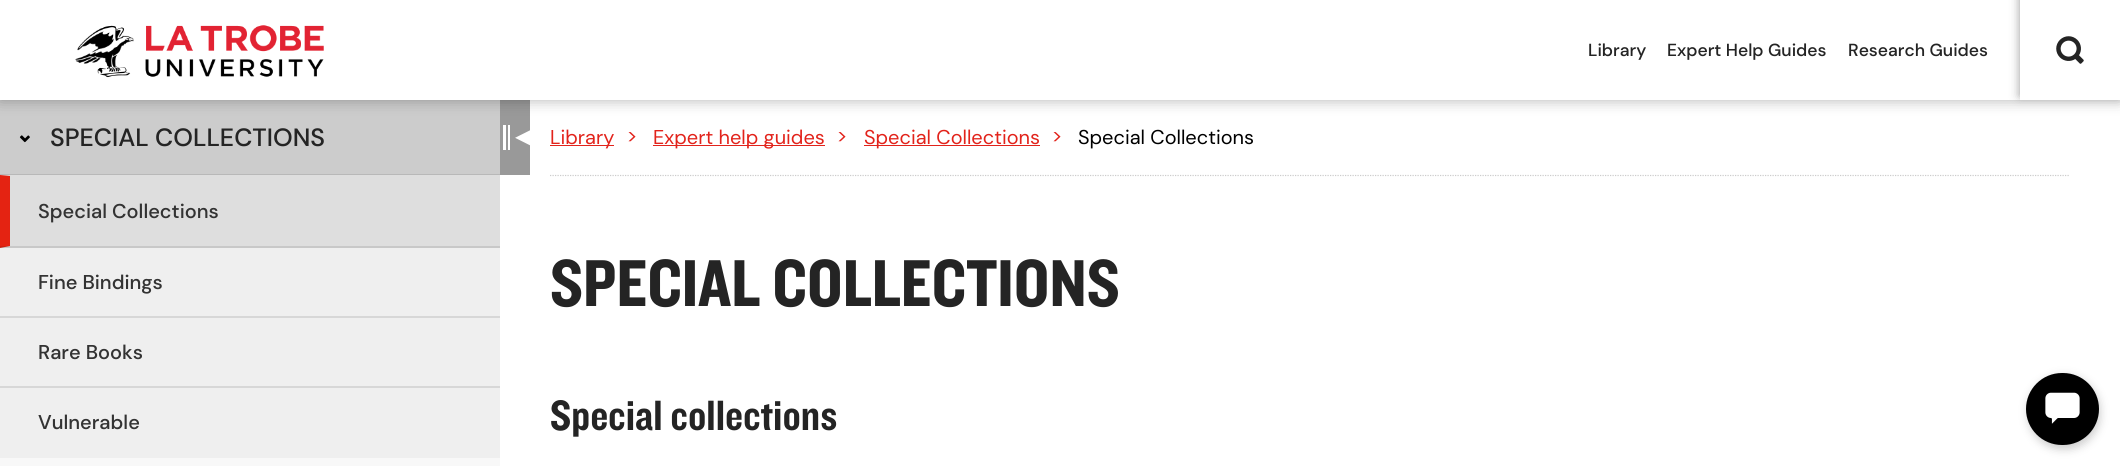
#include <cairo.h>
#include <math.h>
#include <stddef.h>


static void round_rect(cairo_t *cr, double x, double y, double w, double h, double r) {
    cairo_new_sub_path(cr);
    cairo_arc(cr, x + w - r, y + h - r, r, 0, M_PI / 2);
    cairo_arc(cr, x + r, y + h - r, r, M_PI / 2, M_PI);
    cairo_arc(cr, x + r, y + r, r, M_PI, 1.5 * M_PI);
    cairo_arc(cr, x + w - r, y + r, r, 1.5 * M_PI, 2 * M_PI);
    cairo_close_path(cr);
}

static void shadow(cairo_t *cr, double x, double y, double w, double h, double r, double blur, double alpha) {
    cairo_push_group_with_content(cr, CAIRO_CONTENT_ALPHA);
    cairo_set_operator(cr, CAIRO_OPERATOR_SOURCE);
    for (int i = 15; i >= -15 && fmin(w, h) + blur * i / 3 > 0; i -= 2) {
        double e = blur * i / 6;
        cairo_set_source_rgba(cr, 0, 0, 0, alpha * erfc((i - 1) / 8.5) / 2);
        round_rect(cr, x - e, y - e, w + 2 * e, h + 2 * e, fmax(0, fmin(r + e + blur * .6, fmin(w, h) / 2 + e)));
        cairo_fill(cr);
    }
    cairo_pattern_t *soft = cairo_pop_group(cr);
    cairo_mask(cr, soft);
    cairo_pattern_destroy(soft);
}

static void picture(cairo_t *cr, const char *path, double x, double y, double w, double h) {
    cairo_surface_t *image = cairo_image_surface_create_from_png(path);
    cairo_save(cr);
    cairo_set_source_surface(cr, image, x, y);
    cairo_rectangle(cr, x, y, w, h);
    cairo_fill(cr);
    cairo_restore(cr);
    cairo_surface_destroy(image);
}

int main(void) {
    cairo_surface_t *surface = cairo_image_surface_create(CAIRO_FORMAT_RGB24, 2120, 466);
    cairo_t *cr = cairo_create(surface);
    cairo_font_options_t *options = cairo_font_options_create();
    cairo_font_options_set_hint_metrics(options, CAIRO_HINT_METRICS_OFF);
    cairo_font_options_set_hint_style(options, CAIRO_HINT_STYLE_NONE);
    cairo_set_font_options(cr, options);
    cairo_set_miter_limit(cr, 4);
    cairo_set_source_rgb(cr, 1, 1, 1);
    cairo_paint(cr);
    cairo_set_source_rgb(cr, 0.8, 0.8, 0.8);
    cairo_rectangle(cr, 0, 100, 500, 74);
    cairo_fill(cr);
    cairo_set_source_rgb(cr, 0.6, 0.6, 0.6);
    cairo_rectangle(cr, 500, 100, 30, 75);
    cairo_fill(cr);
    cairo_set_source_rgb(cr, 0, 0, 0);
    shadow(cr, 0, 0, 2120, 100, 0, 7.5, 0.3);
    cairo_set_source_rgb(cr, 1, 1, 1);
    cairo_rectangle(cr, 0, 0, 2020, 100);
    cairo_fill(cr);
    picture(cr, "img1.png", 75, 25, 249, 53);
    cairo_select_font_face(cr, "DM Sans Medium", CAIRO_FONT_SLANT_NORMAL, CAIRO_FONT_WEIGHT_NORMAL);
    cairo_set_font_size(cr, 17.5);
    cairo_set_source_rgb(cr, 0.141, 0.141, 0.141);
    cairo_move_to(cr, 1588, 56);
    cairo_show_text(cr, "Library");
    cairo_move_to(cr, 1667, 56);
    cairo_show_text(cr, "Expert Help Guides");
    cairo_move_to(cr, 1848, 56);
    cairo_show_text(cr, "Research Guides");
    cairo_set_source_rgb(cr, 0.6, 0.6, 0.6);
    shadow(cr, 2020, -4, 100, 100, 0, 5, 1);
    cairo_set_source_rgb(cr, 1, 1, 1);
    cairo_rectangle(cr, 2020, 0, 100, 100);
    cairo_fill(cr);
    picture(cr, "img2.png", 2056, 36, 28, 28);
    cairo_set_source_rgb(cr, 0.969, 0.969, 0.969);
    cairo_rectangle(cr, 0, 458, 500, 8);
    cairo_fill(cr);
    picture(cr, "img3.png", 19, 135, 11, 8);
    cairo_set_font_size(cr, 25);
    cairo_set_source_rgb(cr, 0.141, 0.141, 0.141);
    cairo_move_to(cr, 50, 146);
    cairo_show_text(cr, "SPECIAL COLLECTIONS");
    cairo_set_source_rgb(cr, 0.722, 0.722, 0.722);
    cairo_rectangle(cr, 0, 174, 500, 1);
    cairo_fill(cr);
    cairo_set_source_rgb(cr, 0.871, 0.871, 0.871);
    cairo_rectangle(cr, 0, 175, 500, 73);
    cairo_fill(cr);
    cairo_set_source_rgb(cr, 0.894, 0.137, 0.071);
    cairo_new_path(cr);
    cairo_move_to(cr, 0, 248);
    cairo_line_to(cr, 0, 175);
    cairo_line_to(cr, 10, 176);
    cairo_line_to(cr, 10, 246);
    cairo_close_path(cr);
    cairo_fill(cr);
    cairo_set_font_size(cr, 20);
    cairo_set_source_rgb(cr, 0.2, 0.2, 0.2);
    cairo_move_to(cr, 38, 218);
    cairo_show_text(cr, "Special Collections");
    cairo_set_source_rgba(cr, 0, 0, 0, 0.1);
    cairo_rectangle(cr, 0, 246, 500, 2);
    cairo_fill(cr);
    cairo_set_source_rgb(cr, 0.937, 0.937, 0.937);
    cairo_rectangle(cr, 0, 248, 500, 68);
    cairo_fill(cr);
    cairo_set_source_rgb(cr, 0.2, 0.2, 0.2);
    cairo_move_to(cr, 38, 289);
    cairo_show_text(cr, "Fine Bindings");
    cairo_set_source_rgb(cr, 0.843, 0.843, 0.843);
    cairo_rectangle(cr, 0, 316, 500, 2);
    cairo_fill(cr);
    cairo_set_source_rgb(cr, 0.937, 0.937, 0.937);
    cairo_rectangle(cr, 0, 318, 500, 68);
    cairo_fill(cr);
    cairo_set_source_rgb(cr, 0.2, 0.2, 0.2);
    cairo_move_to(cr, 38, 359);
    cairo_show_text(cr, "Rare Books");
    cairo_set_source_rgb(cr, 0.843, 0.843, 0.843);
    cairo_rectangle(cr, 0, 386, 500, 2);
    cairo_fill(cr);
    cairo_set_source_rgb(cr, 0.937, 0.937, 0.937);
    cairo_rectangle(cr, 0, 388, 500, 70);
    cairo_fill(cr);
    cairo_set_source_rgb(cr, 0.2, 0.2, 0.2);
    cairo_move_to(cr, 38, 429);
    cairo_show_text(cr, "Vulnerable");
    cairo_set_source_rgb(cr, 1, 1, 1);
    cairo_rectangle(cr, 503, 125, 3, 25);
    cairo_fill(cr);
    cairo_rectangle(cr, 508, 125, 2, 25);
    cairo_fill(cr);
    cairo_select_font_face(cr, "DejaVu Sans", CAIRO_FONT_SLANT_NORMAL, CAIRO_FONT_WEIGHT_NORMAL);
    cairo_move_to(cr, 515, 143);
    cairo_show_text(cr, "◀");
    cairo_new_path(cr);
    cairo_move_to(cr, 550, 175.5);
    cairo_line_to(cr, 2070, 175.5);
    cairo_set_source_rgb(cr, 0.8, 0.8, 0.8);
    cairo_set_line_width(cr, 1.2);
    cairo_set_dash(cr, (double[]){1.25, 1.25}, 2, 0);
    cairo_stroke(cr);
    cairo_set_source_rgb(cr, 0.886, 0.137, 0.106);
    cairo_rectangle(cr, 550, 145, 64, 1);
    cairo_fill(cr);
    cairo_select_font_face(cr, "DM Sans", CAIRO_FONT_SLANT_NORMAL, CAIRO_FONT_WEIGHT_NORMAL);
    cairo_move_to(cr, 550, 144);
    cairo_show_text(cr, "Library");
    cairo_move_to(cr, 627, 144);
    cairo_show_text(cr, ">");
    cairo_rectangle(cr, 653, 145, 172, 1);
    cairo_fill(cr);
    cairo_move_to(cr, 653, 144);
    cairo_show_text(cr, "Expert help guides");
    cairo_move_to(cr, 837, 144);
    cairo_show_text(cr, ">");
    cairo_rectangle(cr, 864, 145, 176, 1);
    cairo_fill(cr);
    cairo_move_to(cr, 864, 144);
    cairo_show_text(cr, "Special Collections");
    cairo_move_to(cr, 1052, 144);
    cairo_show_text(cr, ">");
    cairo_set_source_rgb(cr, 0, 0, 0);
    cairo_move_to(cr, 1078, 144);
    cairo_show_text(cr, "Special Collections");
    cairo_select_font_face(cr, "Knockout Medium", CAIRO_FONT_SLANT_NORMAL, CAIRO_FONT_WEIGHT_NORMAL);
    cairo_set_font_size(cr, 68.75);
    cairo_set_source_rgb(cr, 0.141, 0.141, 0.141);
    cairo_move_to(cr, 550, 306);
    cairo_show_text(cr, "SPECIAL COLLECTIONS");
    cairo_set_font_size(cr, 44);
    cairo_move_to(cr, 550, 430);
    cairo_show_text(cr, "Special collections");
    cairo_set_source_rgb(cr, 0.8, 0.8, 0.8);
    shadow(cr, 2028, 376, 72, 73, 36, 4.5, 1);
    cairo_set_source_rgb(cr, 0, 0, 0);
    round_rect(cr, 2026, 373, 73, 72, 36);
    cairo_fill(cr);
    picture(cr, "img4.png", 2045, 392, 35, 32);
    cairo_surface_write_to_png(surface, "page.png");
    cairo_font_options_destroy(options);
    cairo_destroy(cr);
    cairo_surface_destroy(surface);
    return 0;
}
